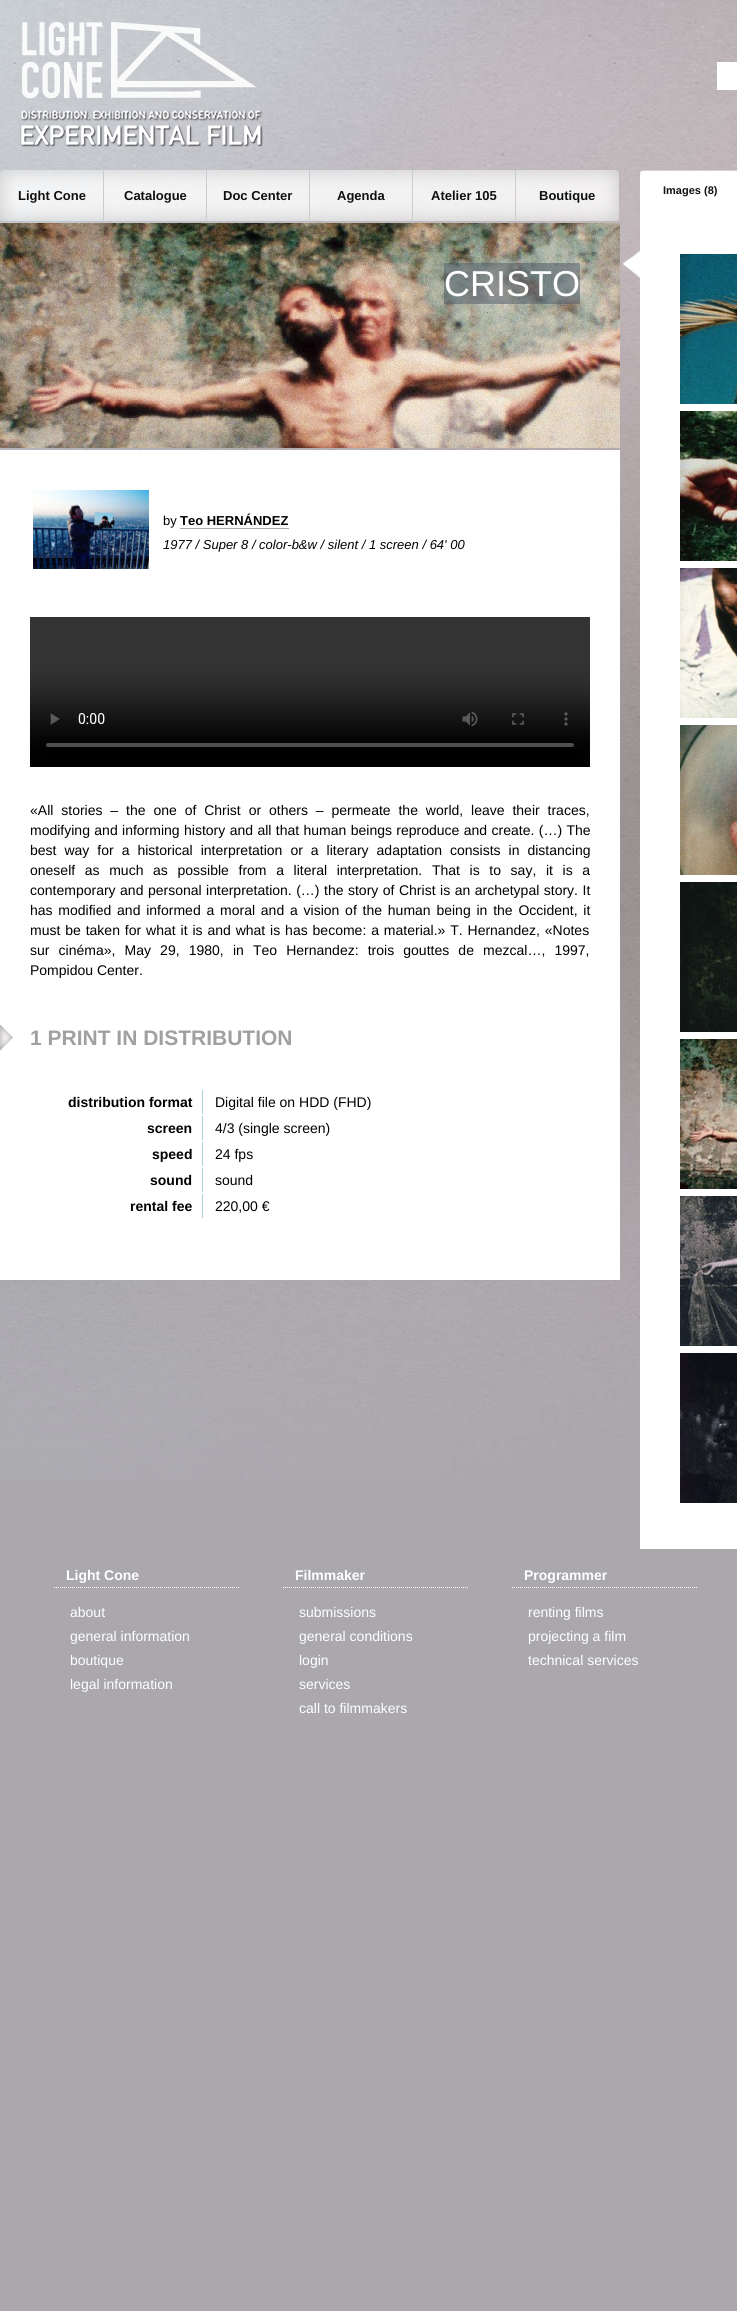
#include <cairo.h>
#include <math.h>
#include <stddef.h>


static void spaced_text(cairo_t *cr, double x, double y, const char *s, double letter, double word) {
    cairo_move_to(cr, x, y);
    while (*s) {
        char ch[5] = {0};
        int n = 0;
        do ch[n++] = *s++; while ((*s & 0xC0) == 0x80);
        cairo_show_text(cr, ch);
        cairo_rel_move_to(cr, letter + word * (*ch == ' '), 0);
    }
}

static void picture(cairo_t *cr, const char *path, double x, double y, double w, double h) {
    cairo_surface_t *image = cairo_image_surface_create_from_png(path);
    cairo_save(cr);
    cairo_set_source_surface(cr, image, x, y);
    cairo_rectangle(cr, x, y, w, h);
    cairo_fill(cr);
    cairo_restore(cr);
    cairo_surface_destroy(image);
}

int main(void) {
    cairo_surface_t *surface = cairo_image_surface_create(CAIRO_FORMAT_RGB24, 737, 2311);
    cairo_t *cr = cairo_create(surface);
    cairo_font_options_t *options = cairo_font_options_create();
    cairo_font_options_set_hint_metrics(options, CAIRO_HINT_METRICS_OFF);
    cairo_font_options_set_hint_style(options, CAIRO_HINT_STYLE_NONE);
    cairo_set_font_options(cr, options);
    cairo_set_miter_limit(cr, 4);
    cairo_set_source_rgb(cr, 0.667, 0.659, 0.678);
    cairo_paint(cr);
    picture(cr, "img1.png", 0, 0, 737, 1480);
    picture(cr, "img2.png", 20, 22, 243, 125);
    cairo_set_source_rgb(cr, 1, 1, 1);
    cairo_rectangle(cr, 717, 62, 20, 28);
    cairo_fill(cr);
    picture(cr, "img3.png", 0, 170, 103, 51);
    cairo_select_font_face(cr, "Liberation Sans", CAIRO_FONT_SLANT_NORMAL, CAIRO_FONT_WEIGHT_BOLD);
    cairo_set_font_size(cr, 13);
    cairo_set_source_rgb(cr, 0.063, 0.063, 0.063);
    cairo_move_to(cr, 18, 200);
    cairo_show_text(cr, "Light Cone");
    picture(cr, "img4.png", 104, 170, 102, 51);
    cairo_set_source_rgb(cr, 0.8, 0.8, 0.8);
    cairo_rectangle(cr, 103, 170, 1, 51);
    cairo_fill(cr);
    cairo_set_source_rgb(cr, 0.063, 0.063, 0.063);
    cairo_move_to(cr, 124, 200);
    cairo_show_text(cr, "Catalogue");
    picture(cr, "img5.png", 207, 170, 102, 51);
    cairo_set_source_rgb(cr, 0.8, 0.8, 0.8);
    cairo_rectangle(cr, 206, 170, 1, 51);
    cairo_fill(cr);
    cairo_set_source_rgb(cr, 0.063, 0.063, 0.063);
    cairo_move_to(cr, 223, 200);
    cairo_show_text(cr, "Doc Center");
    picture(cr, "img6.png", 310, 170, 102, 51);
    cairo_set_source_rgb(cr, 0.8, 0.8, 0.8);
    cairo_rectangle(cr, 309, 170, 1, 51);
    cairo_fill(cr);
    cairo_set_source_rgb(cr, 0.063, 0.063, 0.063);
    cairo_move_to(cr, 337, 200);
    cairo_show_text(cr, "Agenda");
    picture(cr, "img7.png", 413, 170, 102, 51);
    cairo_set_source_rgb(cr, 0.8, 0.8, 0.8);
    cairo_rectangle(cr, 412, 170, 1, 51);
    cairo_fill(cr);
    cairo_set_source_rgb(cr, 0.063, 0.063, 0.063);
    cairo_move_to(cr, 431, 200);
    cairo_show_text(cr, "Atelier 105");
    picture(cr, "img8.png", 516, 170, 103, 51);
    cairo_set_source_rgb(cr, 0.8, 0.8, 0.8);
    cairo_rectangle(cr, 515, 170, 1, 51);
    cairo_fill(cr);
    cairo_set_source_rgb(cr, 0.063, 0.063, 0.063);
    cairo_move_to(cr, 539, 200);
    cairo_show_text(cr, "Boutique");
    picture(cr, "img9.png", 623, 250, 17, 28);
    picture(cr, "img10.png", 640, 170, 97, 41);
    cairo_set_font_size(cr, 11);
    cairo_move_to(cr, 663, 194);
    cairo_show_text(cr, "Images (8)");
    cairo_set_source_rgb(cr, 1, 1, 1);
    cairo_rectangle(cr, 640, 211, 97, 1338);
    cairo_fill(cr);
    picture(cr, "img11.png", 680, 254, 57, 150);
    picture(cr, "img12.png", 680, 411, 57, 150);
    picture(cr, "img13.png", 680, 568, 57, 150);
    picture(cr, "img14.png", 680, 725, 57, 150);
    picture(cr, "img15.png", 680, 882, 57, 150);
    picture(cr, "img16.png", 680, 1039, 57, 150);
    picture(cr, "img17.png", 680, 1196, 57, 150);
    picture(cr, "img18.png", 680, 1353, 57, 150);
    picture(cr, "img19.png", 0, 223, 620, 225);
    cairo_set_source_rgba(cr, 0.29, 0.337, 0.392, 0.5);
    cairo_rectangle(cr, 444, 263, 136, 41);
    cairo_fill(cr);
    cairo_select_font_face(cr, "Liberation Sans", CAIRO_FONT_SLANT_NORMAL, CAIRO_FONT_WEIGHT_NORMAL);
    cairo_set_font_size(cr, 36);
    cairo_set_source_rgb(cr, 1, 1, 1);
    cairo_move_to(cr, 444, 296);
    cairo_show_text(cr, "CRISTO");
    cairo_rectangle(cr, 0, 450, 620, 830);
    cairo_fill(cr);
    picture(cr, "img20.png", 33, 490, 116, 79);
    cairo_set_font_size(cr, 13);
    cairo_set_source_rgb(cr, 0, 0, 0);
    cairo_move_to(cr, 163, 525);
    cairo_show_text(cr, "by");
    cairo_select_font_face(cr, "Liberation Sans", CAIRO_FONT_SLANT_NORMAL, CAIRO_FONT_WEIGHT_BOLD);
    cairo_move_to(cr, 180, 525);
    cairo_show_text(cr, "Teo HERNÁNDEZ");
    cairo_set_source_rgb(cr, 0.667, 0.667, 0.667);
    cairo_rectangle(cr, 180, 528, 109, 1);
    cairo_fill(cr);
    cairo_select_font_face(cr, "Liberation Sans", CAIRO_FONT_SLANT_ITALIC, CAIRO_FONT_WEIGHT_NORMAL);
    cairo_set_source_rgb(cr, 0, 0, 0);
    cairo_move_to(cr, 163, 549);
    cairo_show_text(cr, "1977 / Super 8 / color-b&w / silent / 1 screen / 64' 00");
    picture(cr, "img21.png", 30, 617, 560, 150);
    cairo_select_font_face(cr, "Liberation Sans", CAIRO_FONT_SLANT_NORMAL, CAIRO_FONT_WEIGHT_NORMAL);
    cairo_set_font_size(cr, 14);
    spaced_text(cr, 30, 815, "«All stories – the one of Christ or others – permeate the world, leave their traces,", 0, 4);
    spaced_text(cr, 30, 835, "modifying and informing history and all that human beings reproduce and create. (…) The", 0, 0.5);
    spaced_text(cr, 30, 855, "best way for a historical interpretation or a literary adaptation consists in distancing", 0, 4.1);
    spaced_text(cr, 30, 875, "oneself as much as possible from a literal interpretation. That is to say, it is a", 0, 5.75);
    spaced_text(cr, 30, 895, "contemporary and personal interpretation. (…) the story of Christ is an archetypal story. It", 0, 0.6);
    spaced_text(cr, 30, 915, "has modified and informed a moral and a vision of the human being in the Occident, it", 0, 1.9);
    spaced_text(cr, 30, 935, "must be taken for what it is and what is has become: a material.» T. Hernandez, «Notes", 0, 1);
    spaced_text(cr, 30, 955, "sur cinéma», May 29, 1980, in Teo Hernandez: trois gouttes de mezcal…, 1997,", 0, 5.25);
    cairo_move_to(cr, 30, 975);
    cairo_show_text(cr, "Pompidou Center.");
    picture(cr, "img22.png", 0, 1024, 13, 27);
    cairo_select_font_face(cr, "Liberation Sans", CAIRO_FONT_SLANT_NORMAL, CAIRO_FONT_WEIGHT_BOLD);
    cairo_set_font_size(cr, 21);
    cairo_set_source_rgb(cr, 0.627, 0.627, 0.627);
    cairo_move_to(cr, 30, 1045);
    cairo_show_text(cr, "1 PRINT IN DISTRIBUTION");
    cairo_set_source_rgb(cr, 0.663, 0.816, 0.847);
    cairo_rectangle(cr, 202, 1090, 1, 24);
    cairo_fill(cr);
    cairo_set_font_size(cr, 14);
    cairo_set_source_rgb(cr, 0, 0, 0);
    cairo_move_to(cr, 68, 1107);
    cairo_show_text(cr, "distribution format");
    cairo_select_font_face(cr, "Liberation Sans", CAIRO_FONT_SLANT_NORMAL, CAIRO_FONT_WEIGHT_NORMAL);
    cairo_move_to(cr, 215, 1107);
    cairo_show_text(cr, "Digital file on HDD (FHD)");
    cairo_set_source_rgb(cr, 0.663, 0.816, 0.847);
    cairo_rectangle(cr, 202, 1116, 1, 24);
    cairo_fill(cr);
    cairo_select_font_face(cr, "Liberation Sans", CAIRO_FONT_SLANT_NORMAL, CAIRO_FONT_WEIGHT_BOLD);
    cairo_set_source_rgb(cr, 0, 0, 0);
    cairo_move_to(cr, 147, 1133);
    cairo_show_text(cr, "screen");
    cairo_select_font_face(cr, "Liberation Sans", CAIRO_FONT_SLANT_NORMAL, CAIRO_FONT_WEIGHT_NORMAL);
    cairo_move_to(cr, 215, 1133);
    cairo_show_text(cr, "4/3 (single screen)");
    cairo_set_source_rgb(cr, 0.663, 0.816, 0.847);
    cairo_rectangle(cr, 202, 1142, 1, 24);
    cairo_fill(cr);
    cairo_select_font_face(cr, "Liberation Sans", CAIRO_FONT_SLANT_NORMAL, CAIRO_FONT_WEIGHT_BOLD);
    cairo_set_source_rgb(cr, 0, 0, 0);
    cairo_move_to(cr, 152, 1159);
    cairo_show_text(cr, "speed");
    cairo_select_font_face(cr, "Liberation Sans", CAIRO_FONT_SLANT_NORMAL, CAIRO_FONT_WEIGHT_NORMAL);
    cairo_move_to(cr, 215, 1159);
    cairo_show_text(cr, "24 fps");
    cairo_set_source_rgb(cr, 0.663, 0.816, 0.847);
    cairo_rectangle(cr, 202, 1168, 1, 24);
    cairo_fill(cr);
    cairo_select_font_face(cr, "Liberation Sans", CAIRO_FONT_SLANT_NORMAL, CAIRO_FONT_WEIGHT_BOLD);
    cairo_set_source_rgb(cr, 0, 0, 0);
    cairo_move_to(cr, 150, 1185);
    cairo_show_text(cr, "sound");
    cairo_select_font_face(cr, "Liberation Sans", CAIRO_FONT_SLANT_NORMAL, CAIRO_FONT_WEIGHT_NORMAL);
    cairo_move_to(cr, 215, 1185);
    cairo_show_text(cr, "sound");
    cairo_set_source_rgb(cr, 0.663, 0.816, 0.847);
    cairo_rectangle(cr, 202, 1194, 1, 24);
    cairo_fill(cr);
    cairo_select_font_face(cr, "Liberation Sans", CAIRO_FONT_SLANT_NORMAL, CAIRO_FONT_WEIGHT_BOLD);
    cairo_set_source_rgb(cr, 0, 0, 0);
    cairo_move_to(cr, 130, 1211);
    cairo_show_text(cr, "rental fee");
    cairo_select_font_face(cr, "Liberation Sans", CAIRO_FONT_SLANT_NORMAL, CAIRO_FONT_WEIGHT_NORMAL);
    cairo_move_to(cr, 215, 1211);
    cairo_show_text(cr, "220,00 €");
    cairo_new_path(cr);
    cairo_move_to(cr, 54, 1587.5);
    cairo_line_to(cr, 239, 1587.5);
    cairo_set_source_rgb(cr, 1, 1, 1);
    cairo_set_line_width(cr, 1);
    cairo_set_dash(cr, (double[]){1, 1}, 2, 0);
    cairo_stroke(cr);
    cairo_select_font_face(cr, "Liberation Sans", CAIRO_FONT_SLANT_NORMAL, CAIRO_FONT_WEIGHT_BOLD);
    cairo_move_to(cr, 66, 1580);
    cairo_show_text(cr, "Light Cone");
    cairo_select_font_face(cr, "Liberation Sans", CAIRO_FONT_SLANT_NORMAL, CAIRO_FONT_WEIGHT_NORMAL);
    cairo_move_to(cr, 70, 1617);
    cairo_show_text(cr, "about");
    cairo_move_to(cr, 70, 1641);
    cairo_show_text(cr, "general information");
    cairo_move_to(cr, 70, 1665);
    cairo_show_text(cr, "boutique");
    cairo_move_to(cr, 70, 1689);
    cairo_show_text(cr, "legal information");
    cairo_new_path(cr);
    cairo_move_to(cr, 283, 1587.5);
    cairo_line_to(cr, 468, 1587.5);
    cairo_stroke(cr);
    cairo_select_font_face(cr, "Liberation Sans", CAIRO_FONT_SLANT_NORMAL, CAIRO_FONT_WEIGHT_BOLD);
    cairo_move_to(cr, 295, 1580);
    cairo_show_text(cr, "Filmmaker");
    cairo_select_font_face(cr, "Liberation Sans", CAIRO_FONT_SLANT_NORMAL, CAIRO_FONT_WEIGHT_NORMAL);
    cairo_move_to(cr, 299, 1617);
    cairo_show_text(cr, "submissions");
    cairo_move_to(cr, 299, 1641);
    cairo_show_text(cr, "general conditions");
    cairo_move_to(cr, 299, 1665);
    cairo_show_text(cr, "login");
    cairo_move_to(cr, 299, 1689);
    cairo_show_text(cr, "services");
    cairo_move_to(cr, 299, 1713);
    cairo_show_text(cr, "call to filmmakers");
    cairo_new_path(cr);
    cairo_move_to(cr, 512, 1587.5);
    cairo_line_to(cr, 697, 1587.5);
    cairo_stroke(cr);
    cairo_select_font_face(cr, "Liberation Sans", CAIRO_FONT_SLANT_NORMAL, CAIRO_FONT_WEIGHT_BOLD);
    cairo_move_to(cr, 524, 1580);
    cairo_show_text(cr, "Programmer");
    cairo_select_font_face(cr, "Liberation Sans", CAIRO_FONT_SLANT_NORMAL, CAIRO_FONT_WEIGHT_NORMAL);
    cairo_move_to(cr, 528, 1617);
    cairo_show_text(cr, "renting films");
    cairo_move_to(cr, 528, 1641);
    cairo_show_text(cr, "projecting a film");
    cairo_move_to(cr, 528, 1665);
    cairo_show_text(cr, "technical services");
    cairo_surface_write_to_png(surface, "page.png");
    cairo_font_options_destroy(options);
    cairo_destroy(cr);
    cairo_surface_destroy(surface);
    return 0;
}
